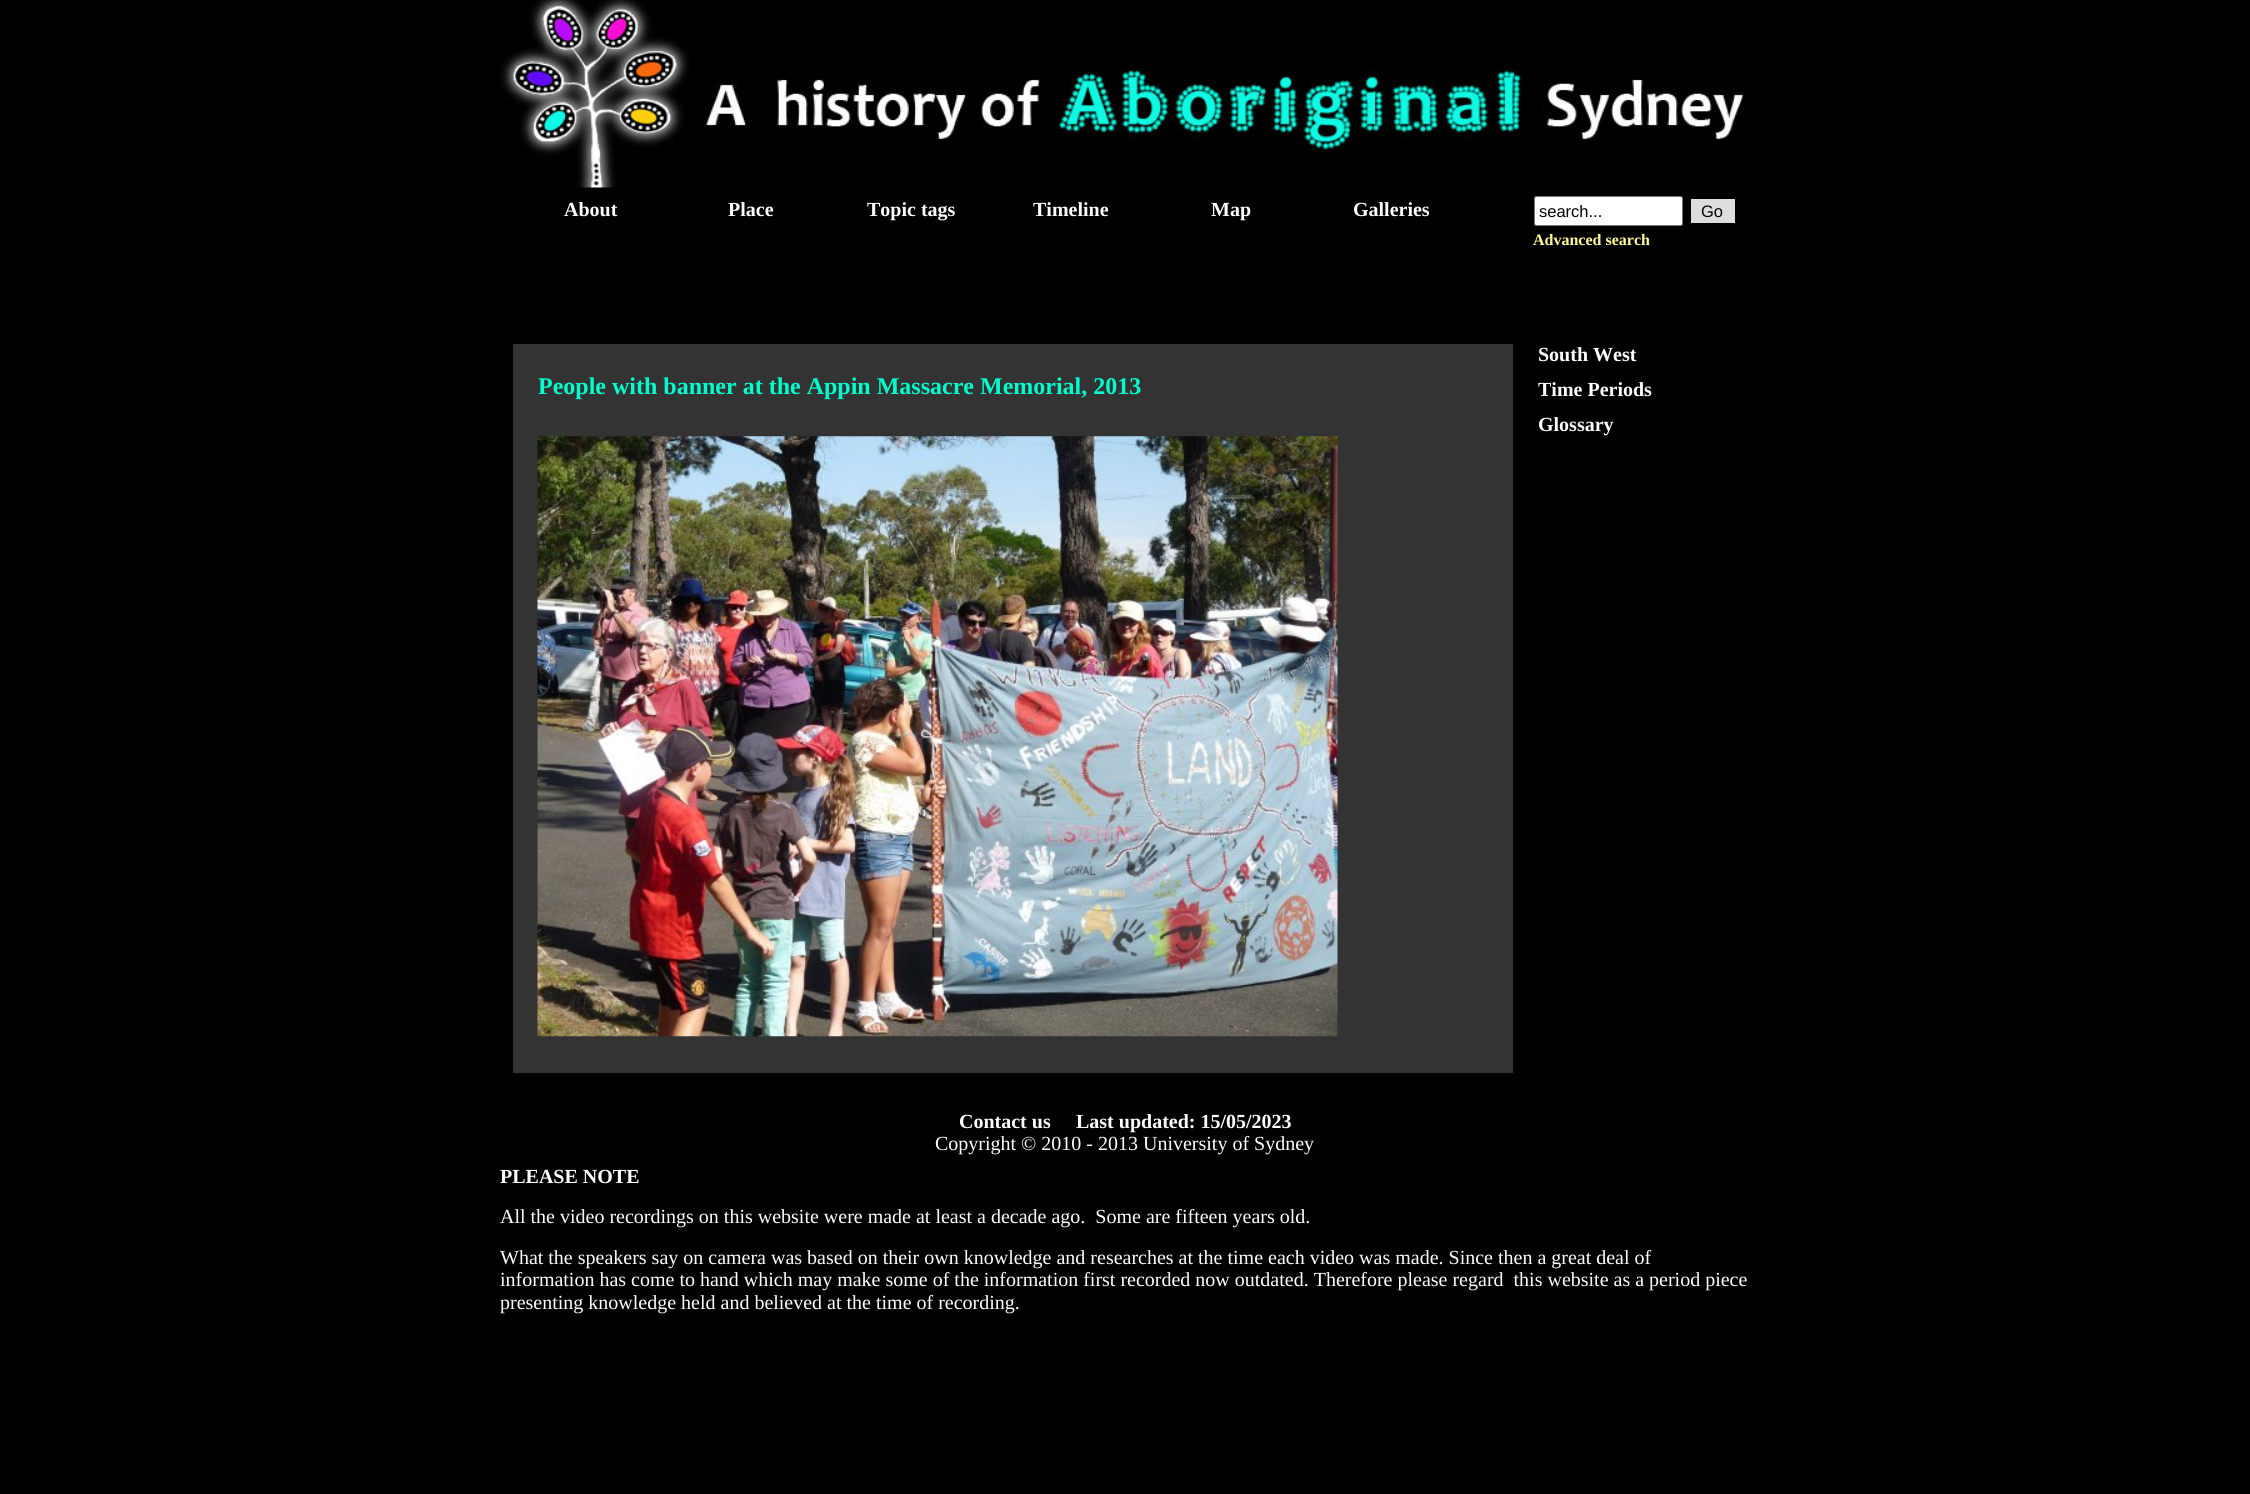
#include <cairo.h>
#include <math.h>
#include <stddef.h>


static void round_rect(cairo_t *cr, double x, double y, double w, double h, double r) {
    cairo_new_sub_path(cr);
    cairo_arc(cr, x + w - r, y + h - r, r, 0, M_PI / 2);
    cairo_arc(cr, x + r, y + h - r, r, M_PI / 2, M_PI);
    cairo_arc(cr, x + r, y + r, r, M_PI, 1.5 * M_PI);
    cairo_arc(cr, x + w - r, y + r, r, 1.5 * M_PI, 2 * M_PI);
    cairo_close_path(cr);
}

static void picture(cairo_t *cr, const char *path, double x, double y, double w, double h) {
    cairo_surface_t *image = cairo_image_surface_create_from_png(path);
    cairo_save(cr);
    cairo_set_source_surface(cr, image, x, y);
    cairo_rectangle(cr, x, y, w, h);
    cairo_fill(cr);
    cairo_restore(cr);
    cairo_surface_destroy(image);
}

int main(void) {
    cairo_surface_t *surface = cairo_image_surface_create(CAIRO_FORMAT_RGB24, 2250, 1494);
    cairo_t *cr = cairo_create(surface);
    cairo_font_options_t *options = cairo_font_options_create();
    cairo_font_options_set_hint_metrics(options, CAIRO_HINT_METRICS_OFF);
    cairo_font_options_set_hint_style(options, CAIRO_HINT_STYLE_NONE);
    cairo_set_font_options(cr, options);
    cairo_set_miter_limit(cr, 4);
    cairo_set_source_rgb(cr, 0, 0, 0);
    cairo_paint(cr);
    picture(cr, "img1.png", 500, 0, 1248, 188);
    cairo_select_font_face(cr, "Liberation Serif", CAIRO_FONT_SLANT_NORMAL, CAIRO_FONT_WEIGHT_BOLD);
    cairo_set_font_size(cr, 20);
    cairo_set_source_rgb(cr, 1, 1, 1);
    cairo_move_to(cr, 564, 216);
    cairo_show_text(cr, "About");
    cairo_move_to(cr, 728, 216);
    cairo_show_text(cr, "Place");
    cairo_move_to(cr, 867, 216);
    cairo_show_text(cr, "Topic tags");
    cairo_move_to(cr, 1033, 216);
    cairo_show_text(cr, "Timeline");
    cairo_move_to(cr, 1211, 216);
    cairo_show_text(cr, "Map");
    cairo_move_to(cr, 1353, 216);
    cairo_show_text(cr, "Galleries");
    round_rect(cr, 1534.5, 196.5, 148, 29, 2);
    cairo_fill_preserve(cr);
    cairo_set_source_rgb(cr, 0.463, 0.463, 0.463);
    cairo_set_line_width(cr, 1);
    cairo_stroke(cr);
    cairo_select_font_face(cr, "Liberation Sans", CAIRO_FONT_SLANT_NORMAL, CAIRO_FONT_WEIGHT_NORMAL);
    cairo_set_font_size(cr, 16.5);
    cairo_set_source_rgb(cr, 0, 0, 0);
    cairo_move_to(cr, 1539, 217);
    cairo_show_text(cr, "search...");
    cairo_set_source_rgb(cr, 0.867, 0.867, 0.867);
    cairo_rectangle(cr, 1691, 199, 44, 24);
    cairo_fill(cr);
    cairo_set_source_rgb(cr, 0, 0, 0);
    cairo_move_to(cr, 1701, 217);
    cairo_show_text(cr, "Go");
    cairo_select_font_face(cr, "Liberation Serif", CAIRO_FONT_SLANT_NORMAL, CAIRO_FONT_WEIGHT_BOLD);
    cairo_set_font_size(cr, 16);
    cairo_set_source_rgb(cr, 1, 1, 0.6);
    cairo_move_to(cr, 1533, 245);
    cairo_show_text(cr, "Advanced search");
    cairo_set_source_rgb(cr, 0.2, 0.2, 0.2);
    cairo_rectangle(cr, 513, 344, 1000, 729);
    cairo_fill(cr);
    cairo_set_font_size(cr, 24);
    cairo_set_source_rgb(cr, 0, 1, 0.8);
    cairo_move_to(cr, 538, 394);
    cairo_show_text(cr, "People with banner at the Appin Massacre Memorial, 2013");
    picture(cr, "img2.png", 537, 436, 801, 601);
    cairo_set_font_size(cr, 20);
    cairo_set_source_rgb(cr, 1, 1, 1);
    cairo_move_to(cr, 1538, 361);
    cairo_show_text(cr, "South West");
    cairo_move_to(cr, 1538, 396);
    cairo_show_text(cr, "Time Periods");
    cairo_move_to(cr, 1538, 431);
    cairo_show_text(cr, "Glossary");
    cairo_move_to(cr, 959, 1128);
    cairo_show_text(cr, "Contact us");
    cairo_move_to(cr, 1076, 1128);
    cairo_show_text(cr, "Last updated: 15/05/2023");
    cairo_select_font_face(cr, "Liberation Serif", CAIRO_FONT_SLANT_NORMAL, CAIRO_FONT_WEIGHT_NORMAL);
    cairo_move_to(cr, 935, 1150);
    cairo_show_text(cr, "Copyright © 2010 - 2013 University of Sydney");
    cairo_select_font_face(cr, "Liberation Serif", CAIRO_FONT_SLANT_NORMAL, CAIRO_FONT_WEIGHT_BOLD);
    cairo_move_to(cr, 500, 1183);
    cairo_show_text(cr, "PLEASE NOTE");
    cairo_select_font_face(cr, "Liberation Serif", CAIRO_FONT_SLANT_NORMAL, CAIRO_FONT_WEIGHT_NORMAL);
    cairo_move_to(cr, 500, 1223);
    cairo_show_text(cr, "All the video recordings on this website were made at least a decade ago.  Some are fifteen years old.");
    cairo_move_to(cr, 500, 1264);
    cairo_show_text(cr, "What the speakers say on camera was based on their own knowledge and researches at the time each video was made. Since then a great deal of");
    cairo_move_to(cr, 500, 1286);
    cairo_show_text(cr, "information has come to hand which may make some of the information first recorded now outdated. Therefore please regard  this website as a period piece");
    cairo_move_to(cr, 500, 1309);
    cairo_show_text(cr, "presenting knowledge held and believed at the time of recording.");
    cairo_surface_write_to_png(surface, "page.png");
    cairo_font_options_destroy(options);
    cairo_destroy(cr);
    cairo_surface_destroy(surface);
    return 0;
}
